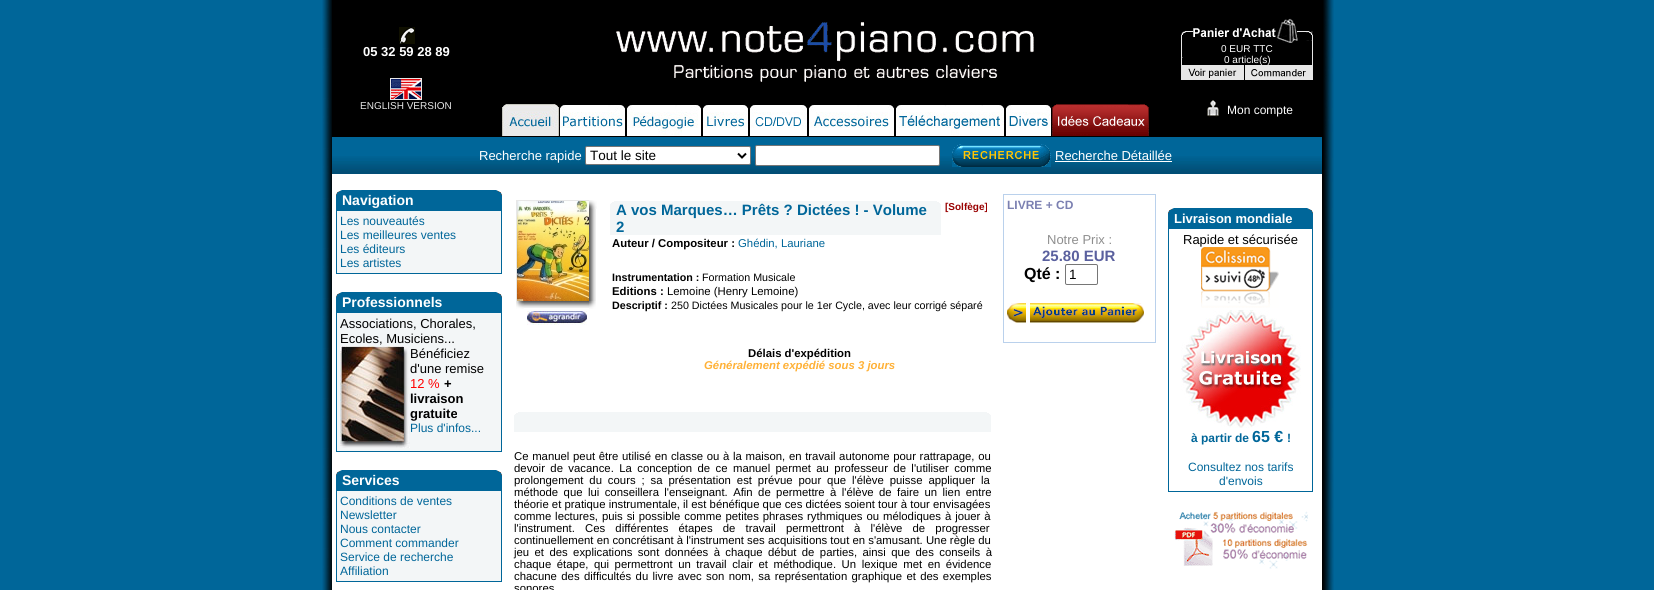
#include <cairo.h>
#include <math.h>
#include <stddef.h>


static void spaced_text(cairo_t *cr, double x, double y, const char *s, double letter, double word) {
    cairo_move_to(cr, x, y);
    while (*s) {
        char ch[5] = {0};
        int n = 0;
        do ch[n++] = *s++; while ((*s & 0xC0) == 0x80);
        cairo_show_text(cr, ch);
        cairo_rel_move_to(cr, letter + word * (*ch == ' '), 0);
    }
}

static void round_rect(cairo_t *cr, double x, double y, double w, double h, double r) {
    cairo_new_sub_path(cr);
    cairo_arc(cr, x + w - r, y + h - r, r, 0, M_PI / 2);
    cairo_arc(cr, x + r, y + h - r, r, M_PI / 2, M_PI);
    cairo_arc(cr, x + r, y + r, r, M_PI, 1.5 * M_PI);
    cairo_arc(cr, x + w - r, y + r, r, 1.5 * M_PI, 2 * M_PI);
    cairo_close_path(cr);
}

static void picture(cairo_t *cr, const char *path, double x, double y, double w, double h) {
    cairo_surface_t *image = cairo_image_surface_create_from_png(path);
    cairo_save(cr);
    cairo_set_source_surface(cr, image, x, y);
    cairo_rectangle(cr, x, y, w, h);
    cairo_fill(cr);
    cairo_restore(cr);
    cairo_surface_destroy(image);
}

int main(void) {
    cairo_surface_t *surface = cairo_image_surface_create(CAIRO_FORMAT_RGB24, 1654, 590);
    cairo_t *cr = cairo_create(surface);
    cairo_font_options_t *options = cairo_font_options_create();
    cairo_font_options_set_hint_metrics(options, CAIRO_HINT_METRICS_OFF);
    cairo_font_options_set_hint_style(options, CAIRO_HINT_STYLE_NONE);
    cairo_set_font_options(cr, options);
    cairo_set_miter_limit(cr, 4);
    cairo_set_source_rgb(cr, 0, 0.4, 0.6);
    cairo_paint(cr);
    picture(cr, "img1.png", 322, 0, 1012, 590);
    cairo_set_source_rgb(cr, 0, 0, 0);
    cairo_rectangle(cr, 332, 0, 990, 137);
    cairo_fill(cr);
    picture(cr, "img2.png", 399, 27, 16, 17);
    cairo_select_font_face(cr, "Liberation Sans", CAIRO_FONT_SLANT_NORMAL, CAIRO_FONT_WEIGHT_BOLD);
    cairo_set_font_size(cr, 13);
    cairo_set_source_rgb(cr, 1, 1, 1);
    cairo_move_to(cr, 363, 56);
    cairo_show_text(cr, "05 32 59 28 89");
    picture(cr, "img3.png", 390, 78, 32, 22);
    cairo_select_font_face(cr, "Liberation Sans", CAIRO_FONT_SLANT_NORMAL, CAIRO_FONT_WEIGHT_NORMAL);
    cairo_set_font_size(cr, 10);
    cairo_set_source_rgb(cr, 0.906, 0.906, 0.906);
    cairo_move_to(cr, 360, 109);
    cairo_show_text(cr, "ENGLISH VERSION");
    picture(cr, "img4.png", 616, 22, 418, 60);
    picture(cr, "img5.png", 502, 104, 57, 32);
    picture(cr, "img6.png", 559, 105, 66, 31);
    picture(cr, "img7.png", 626, 105, 75, 31);
    picture(cr, "img8.png", 702, 105, 47, 31);
    picture(cr, "img9.png", 749, 105, 59, 31);
    picture(cr, "img10.png", 808, 105, 87, 31);
    picture(cr, "img11.png", 895, 105, 110, 31);
    picture(cr, "img12.png", 1005, 105, 47, 31);
    picture(cr, "img13.png", 1052, 104, 97, 32);
    picture(cr, "img14.png", 1181, 31, 4, 12);
    picture(cr, "img15.png", 1185, 18, 124, 25);
    picture(cr, "img16.png", 1309, 31, 4, 12);
    picture(cr, "img17.png", 1181, 43, 2, 22);
    cairo_set_source_rgb(cr, 1, 1, 1);
    cairo_move_to(cr, 1221, 52);
    cairo_show_text(cr, "0 EUR TTC");
    cairo_move_to(cr, 1224, 63);
    cairo_show_text(cr, "0 article(s)");
    cairo_set_source_rgb(cr, 0.906, 0.906, 0.906);
    cairo_rectangle(cr, 1312, 43, 1, 22);
    cairo_fill(cr);
    cairo_rectangle(cr, 1181, 65, 4, 15);
    cairo_fill(cr);
    picture(cr, "img18.png", 1185, 65, 59, 15);
    picture(cr, "img19.png", 1245, 65, 64, 15);
    cairo_rectangle(cr, 1309, 65, 4, 15);
    cairo_fill(cr);
    picture(cr, "img20.png", 1207, 100, 12, 17);
    cairo_set_font_size(cr, 12);
    cairo_set_source_rgb(cr, 1, 1, 1);
    cairo_move_to(cr, 1227, 114);
    cairo_show_text(cr, "Mon compte");
    cairo_rectangle(cr, 332, 174, 1, 416);
    cairo_fill(cr);
    cairo_set_source_rgb(cr, 0, 0.4, 0.6);
    cairo_rectangle(cr, 332, 137, 990, 19);
    cairo_fill(cr);
    picture(cr, "img21.png", 332, 156, 990, 18);
    cairo_set_font_size(cr, 13);
    cairo_set_source_rgb(cr, 1, 1, 1);
    cairo_move_to(cr, 479, 160);
    cairo_show_text(cr, "Recherche rapide");
    round_rect(cr, 585.5, 146.5, 165, 18, 1.5);
    cairo_fill_preserve(cr);
    cairo_set_source_rgb(cr, 0.463, 0.463, 0.463);
    cairo_set_line_width(cr, 1);
    cairo_stroke(cr);
    cairo_new_path(cr);
    cairo_move_to(cr, 738, 153.5);
    cairo_line_to(cr, 742, 157.5);
    cairo_line_to(cr, 746, 153.5);
    cairo_set_source_rgb(cr, 0, 0, 0);
    cairo_set_line_width(cr, 2);
    cairo_stroke(cr);
    cairo_set_font_size(cr, 13.5);
    cairo_move_to(cr, 590, 160);
    cairo_show_text(cr, "Tout le site");
    cairo_set_source_rgb(cr, 1, 1, 1);
    round_rect(cr, 755.5, 145.5, 184, 20, 1.5);
    cairo_fill_preserve(cr);
    cairo_set_source_rgb(cr, 0.463, 0.463, 0.463);
    cairo_set_line_width(cr, 1);
    cairo_stroke(cr);
    picture(cr, "img22.png", 952, 144, 99, 23);
    cairo_set_font_size(cr, 13);
    cairo_set_source_rgb(cr, 1, 1, 1);
    cairo_move_to(cr, 1055, 160);
    cairo_show_text(cr, "Recherche Détaillée");
    cairo_rectangle(cr, 1055, 161, 117, 1);
    cairo_fill(cr);
    cairo_set_source_rgb(cr, 0, 0.4, 0.6);
    cairo_rectangle(cr, 336, 190, 166, 84);
    cairo_fill(cr);
    picture(cr, "img23.png", 336, 190, 6, 5);
    picture(cr, "img24.png", 496, 190, 6, 5);
    cairo_select_font_face(cr, "Liberation Sans", CAIRO_FONT_SLANT_NORMAL, CAIRO_FONT_WEIGHT_BOLD);
    cairo_set_font_size(cr, 14);
    cairo_set_source_rgb(cr, 1, 1, 1);
    cairo_move_to(cr, 342, 205);
    cairo_show_text(cr, "Navigation");
    cairo_set_source_rgb(cr, 0.953, 0.961, 0.965);
    cairo_rectangle(cr, 337, 211, 164, 62);
    cairo_fill(cr);
    cairo_select_font_face(cr, "Liberation Sans", CAIRO_FONT_SLANT_NORMAL, CAIRO_FONT_WEIGHT_NORMAL);
    cairo_set_font_size(cr, 12);
    cairo_set_source_rgb(cr, 0, 0.4, 0.6);
    cairo_move_to(cr, 340, 225);
    cairo_show_text(cr, "Les nouveautés");
    cairo_move_to(cr, 340, 239);
    cairo_show_text(cr, "Les meilleures ventes");
    cairo_move_to(cr, 340, 253);
    cairo_show_text(cr, "Les éditeurs");
    cairo_move_to(cr, 340, 267);
    cairo_show_text(cr, "Les artistes");
    cairo_rectangle(cr, 336, 292, 166, 160);
    cairo_fill(cr);
    picture(cr, "img23.png", 336, 292, 6, 5);
    picture(cr, "img24.png", 496, 292, 6, 5);
    cairo_select_font_face(cr, "Liberation Sans", CAIRO_FONT_SLANT_NORMAL, CAIRO_FONT_WEIGHT_BOLD);
    cairo_set_font_size(cr, 14);
    cairo_set_source_rgb(cr, 1, 1, 1);
    cairo_move_to(cr, 342, 307);
    cairo_show_text(cr, "Professionnels");
    cairo_set_source_rgb(cr, 0.953, 0.961, 0.965);
    cairo_rectangle(cr, 337, 313, 164, 138);
    cairo_fill(cr);
    cairo_select_font_face(cr, "Liberation Sans", CAIRO_FONT_SLANT_NORMAL, CAIRO_FONT_WEIGHT_NORMAL);
    cairo_set_font_size(cr, 13);
    cairo_set_source_rgb(cr, 0, 0, 0);
    cairo_move_to(cr, 340, 328);
    cairo_show_text(cr, "Associations, Chorales,");
    cairo_move_to(cr, 340, 343);
    cairo_show_text(cr, "Ecoles, Musiciens...");
    picture(cr, "img25.png", 340, 346, 70, 102);
    cairo_move_to(cr, 410, 358);
    cairo_show_text(cr, "Bénéficiez");
    cairo_move_to(cr, 410, 373);
    cairo_show_text(cr, "d'une remise");
    cairo_set_source_rgb(cr, 1, 0, 0);
    cairo_move_to(cr, 410, 388);
    cairo_show_text(cr, "12 %");
    cairo_select_font_face(cr, "Liberation Sans", CAIRO_FONT_SLANT_NORMAL, CAIRO_FONT_WEIGHT_BOLD);
    cairo_set_source_rgb(cr, 0, 0, 0);
    cairo_move_to(cr, 444, 388);
    cairo_show_text(cr, "+");
    cairo_move_to(cr, 410, 403);
    cairo_show_text(cr, "livraison");
    cairo_move_to(cr, 410, 418);
    cairo_show_text(cr, "gratuite");
    cairo_select_font_face(cr, "Liberation Sans", CAIRO_FONT_SLANT_NORMAL, CAIRO_FONT_WEIGHT_NORMAL);
    cairo_set_font_size(cr, 12);
    cairo_set_source_rgb(cr, 0, 0.4, 0.6);
    cairo_move_to(cr, 410, 432);
    cairo_show_text(cr, "Plus d'infos...");
    cairo_rectangle(cr, 336, 470, 166, 112);
    cairo_fill(cr);
    picture(cr, "img23.png", 336, 470, 6, 5);
    picture(cr, "img24.png", 496, 470, 6, 5);
    cairo_select_font_face(cr, "Liberation Sans", CAIRO_FONT_SLANT_NORMAL, CAIRO_FONT_WEIGHT_BOLD);
    cairo_set_font_size(cr, 14);
    cairo_set_source_rgb(cr, 1, 1, 1);
    cairo_move_to(cr, 342, 485);
    cairo_show_text(cr, "Services");
    cairo_set_source_rgb(cr, 0.953, 0.961, 0.965);
    cairo_rectangle(cr, 337, 491, 164, 90);
    cairo_fill(cr);
    cairo_select_font_face(cr, "Liberation Sans", CAIRO_FONT_SLANT_NORMAL, CAIRO_FONT_WEIGHT_NORMAL);
    cairo_set_font_size(cr, 12);
    cairo_set_source_rgb(cr, 0, 0.4, 0.6);
    cairo_move_to(cr, 340, 505);
    cairo_show_text(cr, "Conditions de ventes");
    cairo_move_to(cr, 340, 519);
    cairo_show_text(cr, "Newsletter");
    cairo_move_to(cr, 340, 533);
    cairo_show_text(cr, "Nous contacter");
    cairo_move_to(cr, 340, 547);
    cairo_show_text(cr, "Comment commander");
    cairo_move_to(cr, 340, 561);
    cairo_show_text(cr, "Service de recherche");
    cairo_move_to(cr, 340, 575);
    cairo_show_text(cr, "Affiliation");
    cairo_set_source_rgb(cr, 0.906, 0.906, 0.906);
    cairo_rectangle(cr, 516, 200, 73, 1);
    cairo_fill(cr);
    cairo_rectangle(cr, 516, 200, 1, 101);
    cairo_fill(cr);
    picture(cr, "img26.png", 517, 201, 72, 100);
    picture(cr, "img27.png", 589, 209, 7, 92);
    picture(cr, "img28.png", 589, 200, 8, 9);
    picture(cr, "img29.png", 524, 301, 65, 7);
    picture(cr, "img30.png", 516, 301, 8, 8);
    picture(cr, "img31.png", 589, 301, 7, 8);
    picture(cr, "img32.png", 527, 311, 60, 14);
    cairo_set_source_rgb(cr, 0.953, 0.961, 0.965);
    cairo_rectangle(cr, 610, 201, 331, 34);
    cairo_fill(cr);
    picture(cr, "img33.png", 610, 201, 4, 3);
    picture(cr, "img34.png", 937, 201, 4, 3);
    cairo_select_font_face(cr, "Liberation Sans", CAIRO_FONT_SLANT_NORMAL, CAIRO_FONT_WEIGHT_BOLD);
    cairo_set_font_size(cr, 15);
    cairo_set_source_rgb(cr, 0, 0.4, 0.6);
    cairo_move_to(cr, 616, 215);
    cairo_show_text(cr, "A vos Marques… Prêts ? Dictées ! - Volume");
    cairo_move_to(cr, 616, 232);
    cairo_show_text(cr, "2");
    cairo_set_font_size(cr, 11.35);
    cairo_set_source_rgb(cr, 0, 0, 0);
    cairo_move_to(cr, 612, 247);
    cairo_show_text(cr, "Auteur / Compositeur :");
    cairo_select_font_face(cr, "Liberation Sans", CAIRO_FONT_SLANT_NORMAL, CAIRO_FONT_WEIGHT_NORMAL);
    cairo_set_source_rgb(cr, 0, 0.4, 0.6);
    cairo_move_to(cr, 738, 247);
    cairo_show_text(cr, "Ghédin, Lauriane");
    cairo_select_font_face(cr, "Liberation Sans", CAIRO_FONT_SLANT_NORMAL, CAIRO_FONT_WEIGHT_BOLD);
    cairo_set_font_size(cr, 10);
    cairo_set_source_rgb(cr, 0.6, 0, 0);
    cairo_move_to(cr, 945, 210);
    cairo_show_text(cr, "[Solfège]");
    cairo_set_font_size(cr, 10.7);
    cairo_set_source_rgb(cr, 0, 0, 0);
    cairo_move_to(cr, 612, 281);
    cairo_show_text(cr, "Instrumentation :");
    cairo_select_font_face(cr, "Liberation Sans", CAIRO_FONT_SLANT_NORMAL, CAIRO_FONT_WEIGHT_NORMAL);
    cairo_move_to(cr, 702, 281);
    cairo_show_text(cr, "Formation Musicale");
    cairo_select_font_face(cr, "Liberation Sans", CAIRO_FONT_SLANT_NORMAL, CAIRO_FONT_WEIGHT_BOLD);
    cairo_set_font_size(cr, 11.35);
    cairo_move_to(cr, 612, 295);
    cairo_show_text(cr, "Editions :");
    cairo_select_font_face(cr, "Liberation Sans", CAIRO_FONT_SLANT_NORMAL, CAIRO_FONT_WEIGHT_NORMAL);
    cairo_move_to(cr, 667, 295);
    cairo_show_text(cr, "Lemoine (Henry Lemoine)");
    cairo_select_font_face(cr, "Liberation Sans", CAIRO_FONT_SLANT_NORMAL, CAIRO_FONT_WEIGHT_BOLD);
    cairo_set_font_size(cr, 10.7);
    cairo_move_to(cr, 612, 309);
    cairo_show_text(cr, "Descriptif :");
    cairo_select_font_face(cr, "Liberation Sans", CAIRO_FONT_SLANT_NORMAL, CAIRO_FONT_WEIGHT_NORMAL);
    cairo_move_to(cr, 671, 309);
    cairo_show_text(cr, "250 Dictées Musicales pour le 1er Cycle, avec leur corrigé séparé");
    cairo_select_font_face(cr, "Liberation Sans", CAIRO_FONT_SLANT_NORMAL, CAIRO_FONT_WEIGHT_BOLD);
    cairo_set_font_size(cr, 11.35);
    cairo_move_to(cr, 748, 357);
    cairo_show_text(cr, "Délais d'expédition");
    cairo_select_font_face(cr, "Liberation Sans", CAIRO_FONT_SLANT_ITALIC, CAIRO_FONT_WEIGHT_BOLD);
    cairo_set_source_rgb(cr, 1, 0.694, 0.216);
    cairo_move_to(cr, 704, 369);
    cairo_show_text(cr, "Généralement expédié sous 3 jours");
    cairo_set_source_rgb(cr, 0.953, 0.961, 0.965);
    cairo_rectangle(cr, 514, 412, 477, 20);
    cairo_fill(cr);
    picture(cr, "img33.png", 514, 412, 4, 3);
    picture(cr, "img34.png", 987, 412, 4, 3);
    cairo_select_font_face(cr, "Liberation Sans", CAIRO_FONT_SLANT_NORMAL, CAIRO_FONT_WEIGHT_NORMAL);
    cairo_set_source_rgb(cr, 0, 0, 0);
    spaced_text(cr, 514, 460, "Ce manuel peut être utilisé en classe ou à la maison, en travail autonome pour rattrapage, ou", 0, 0.5);
    spaced_text(cr, 514, 472, "devoir de vacance. La conception de ce manuel permet au professeur de l'utiliser comme", 0, 2.25);
    spaced_text(cr, 514, 484, "prolongement du cours ; sa présentation est prévue pour que l'élève puisse appliquer la", 0, 2.75);
    spaced_text(cr, 514, 496, "méthode que lui conseillera l'enseignant. Afin de permettre à l'élève de faire un lien entre", 0, 2.25);
    cairo_move_to(cr, 514, 508);
    cairo_show_text(cr, "théorie et pratique instrumentale, il est bénéfique que ces dictées soient tour à tour envisagées");
    spaced_text(cr, 514, 520, "comme lectures, puis si possible comme petites phrases rythmiques ou mélodiques à jouer à", 0, 0.75);
    spaced_text(cr, 514, 532, "l'instrument. Ces différentes étapes de travail permettront à l'élève de progresser", 0, 7);
    cairo_move_to(cr, 514, 544);
    cairo_show_text(cr, "continuellement en concrétisant à l'instrument ses acquisitions tout en s'amusant. Une règle du");
    spaced_text(cr, 514, 556, "jeu et des explications sont données à chaque début de parties, ainsi que des conseils à", 0, 2.25);
    spaced_text(cr, 514, 568, "chaque étape, qui permettront un travail clair et méthodique. Un lexique met en évidence", 0, 2.4);
    spaced_text(cr, 514, 580, "chacune des difficultés du livre avec son nom, sa représentation graphique et des exemples", 0, 1.2);
    cairo_move_to(cr, 514, 592);
    cairo_show_text(cr, "sonores");
    cairo_set_source_rgb(cr, 0.729, 0.82, 0.922);
    cairo_rectangle(cr, 1003, 194, 153, 149);
    cairo_fill(cr);
    cairo_set_source_rgb(cr, 1, 1, 1);
    cairo_rectangle(cr, 1004, 195, 151, 147);
    cairo_fill(cr);
    cairo_select_font_face(cr, "Liberation Sans", CAIRO_FONT_SLANT_NORMAL, CAIRO_FONT_WEIGHT_BOLD);
    cairo_set_font_size(cr, 12);
    cairo_set_source_rgb(cr, 0.482, 0.502, 0.694);
    cairo_move_to(cr, 1007, 209);
    cairo_show_text(cr, "LIVRE + CD");
    cairo_select_font_face(cr, "Liberation Sans", CAIRO_FONT_SLANT_NORMAL, CAIRO_FONT_WEIGHT_NORMAL);
    cairo_set_font_size(cr, 13);
    cairo_set_source_rgb(cr, 0.557, 0.557, 0.557);
    cairo_move_to(cr, 1047, 244);
    cairo_show_text(cr, "Notre Prix :");
    cairo_select_font_face(cr, "Liberation Sans", CAIRO_FONT_SLANT_NORMAL, CAIRO_FONT_WEIGHT_BOLD);
    cairo_set_font_size(cr, 15);
    cairo_set_source_rgb(cr, 0.353, 0.376, 0.62);
    cairo_move_to(cr, 1042, 261);
    cairo_show_text(cr, "25.80 EUR");
    cairo_set_font_size(cr, 16);
    cairo_set_source_rgb(cr, 0, 0, 0);
    cairo_move_to(cr, 1024, 279);
    cairo_show_text(cr, "Qté :");
    round_rect(cr, 1065.5, 264.5, 32, 20, 1.5);
    cairo_set_source_rgb(cr, 0.463, 0.463, 0.463);
    cairo_stroke(cr);
    cairo_select_font_face(cr, "Liberation Sans", CAIRO_FONT_SLANT_NORMAL, CAIRO_FONT_WEIGHT_NORMAL);
    cairo_set_font_size(cr, 13.5);
    cairo_set_source_rgb(cr, 0, 0, 0);
    cairo_move_to(cr, 1069, 279);
    cairo_show_text(cr, "1");
    picture(cr, "img35.png", 1007, 303, 137, 20);
    cairo_set_source_rgb(cr, 0, 0.4, 0.6);
    cairo_rectangle(cr, 1168, 208, 145, 284);
    cairo_fill(cr);
    picture(cr, "img23.png", 1168, 208, 6, 5);
    picture(cr, "img24.png", 1307, 208, 6, 5);
    cairo_select_font_face(cr, "Liberation Sans", CAIRO_FONT_SLANT_NORMAL, CAIRO_FONT_WEIGHT_BOLD);
    cairo_set_font_size(cr, 13);
    cairo_set_source_rgb(cr, 1, 1, 1);
    cairo_move_to(cr, 1174, 223);
    cairo_show_text(cr, "Livraison mondiale");
    cairo_rectangle(cr, 1169, 229, 143, 262);
    cairo_fill(cr);
    cairo_select_font_face(cr, "Liberation Sans", CAIRO_FONT_SLANT_NORMAL, CAIRO_FONT_WEIGHT_NORMAL);
    cairo_set_source_rgb(cr, 0, 0, 0);
    cairo_move_to(cr, 1183, 244);
    cairo_show_text(cr, "Rapide et sécurisée");
    picture(cr, "img36.png", 1201, 247, 78, 61);
    picture(cr, "img37.png", 1181, 310, 120, 118);
    cairo_select_font_face(cr, "Liberation Sans", CAIRO_FONT_SLANT_NORMAL, CAIRO_FONT_WEIGHT_BOLD);
    cairo_set_font_size(cr, 12);
    cairo_set_source_rgb(cr, 0, 0.4, 0.6);
    cairo_move_to(cr, 1191, 442);
    cairo_show_text(cr, "à partir de");
    cairo_set_font_size(cr, 16);
    cairo_move_to(cr, 1252, 442);
    cairo_show_text(cr, "65 €");
    cairo_set_font_size(cr, 12);
    cairo_move_to(cr, 1287, 442);
    cairo_show_text(cr, "!");
    cairo_select_font_face(cr, "Liberation Sans", CAIRO_FONT_SLANT_NORMAL, CAIRO_FONT_WEIGHT_NORMAL);
    cairo_move_to(cr, 1188, 471);
    cairo_show_text(cr, "Consultez nos tarifs");
    cairo_move_to(cr, 1219, 485);
    cairo_show_text(cr, "d'envois");
    picture(cr, "img38.png", 1174, 511, 134, 58);
    cairo_surface_write_to_png(surface, "page.png");
    cairo_font_options_destroy(options);
    cairo_destroy(cr);
    cairo_surface_destroy(surface);
    return 0;
}
